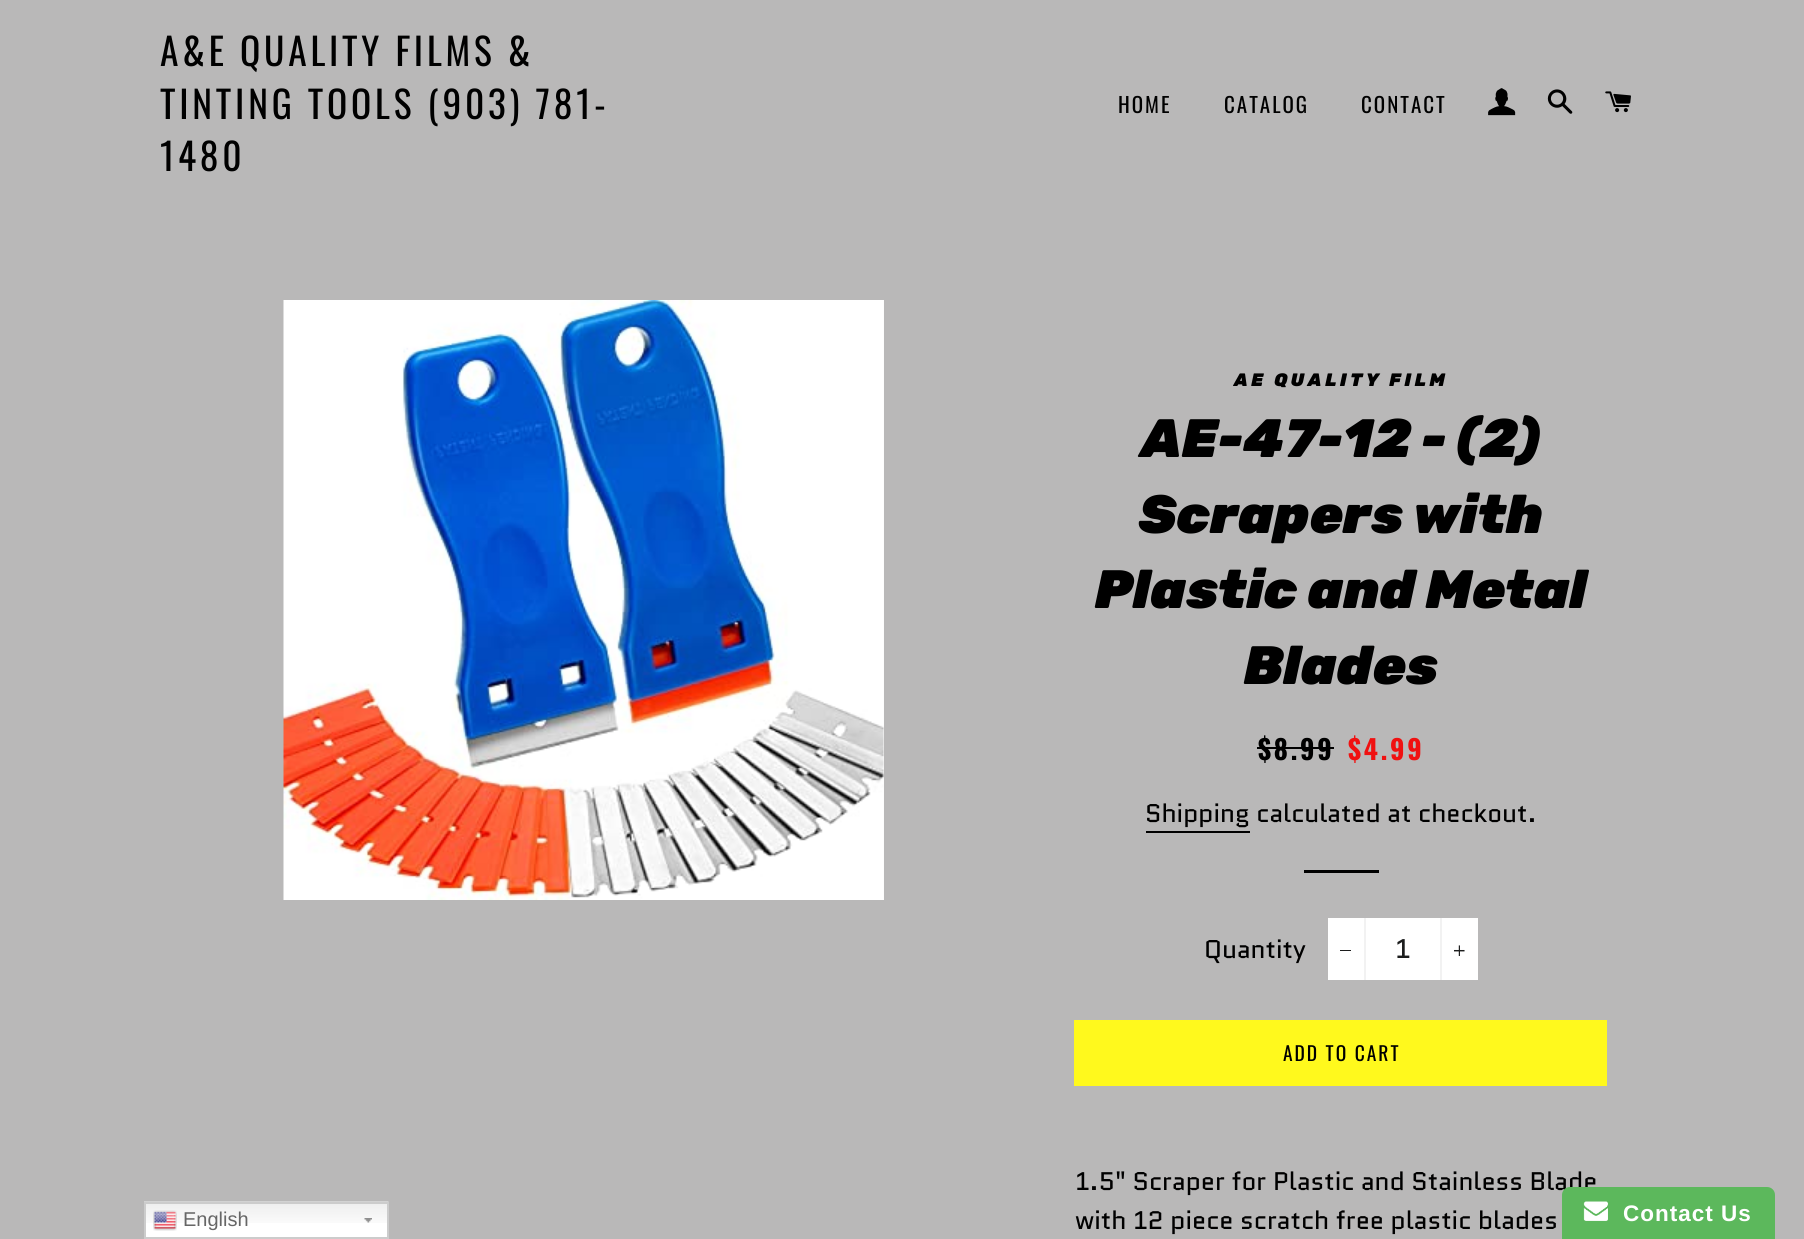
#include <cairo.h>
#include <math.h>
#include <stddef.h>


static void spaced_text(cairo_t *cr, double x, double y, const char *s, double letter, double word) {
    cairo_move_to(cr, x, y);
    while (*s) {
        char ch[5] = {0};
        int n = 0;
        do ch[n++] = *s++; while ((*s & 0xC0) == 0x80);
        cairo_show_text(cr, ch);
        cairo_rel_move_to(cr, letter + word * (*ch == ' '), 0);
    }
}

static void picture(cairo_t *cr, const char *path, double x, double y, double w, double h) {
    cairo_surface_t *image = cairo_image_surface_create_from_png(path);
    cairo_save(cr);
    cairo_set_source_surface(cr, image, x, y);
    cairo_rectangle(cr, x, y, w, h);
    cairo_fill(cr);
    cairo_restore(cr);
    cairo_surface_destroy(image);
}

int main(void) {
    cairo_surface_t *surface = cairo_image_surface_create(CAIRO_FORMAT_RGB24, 1804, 1239);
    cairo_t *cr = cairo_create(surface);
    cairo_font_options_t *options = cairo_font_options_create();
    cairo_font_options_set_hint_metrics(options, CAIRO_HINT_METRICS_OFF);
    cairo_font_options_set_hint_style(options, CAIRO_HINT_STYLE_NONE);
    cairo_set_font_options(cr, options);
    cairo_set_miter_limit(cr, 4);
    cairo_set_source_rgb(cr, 0.725, 0.722, 0.722);
    cairo_paint(cr);
    cairo_select_font_face(cr, "Oswald", CAIRO_FONT_SLANT_NORMAL, CAIRO_FONT_WEIGHT_NORMAL);
    cairo_set_font_size(cr, 37.5);
    cairo_set_source_rgb(cr, 0, 0, 0);
    spaced_text(cr, 160, 66, "A&E QUALITY FILMS &", 3.75, 0);
    spaced_text(cr, 160, 119, "TINTING TOOLS (903) 781-", 3.75, 0);
    spaced_text(cr, 160, 171, "1480", 3.75, 0);
    cairo_set_font_size(cr, 21);
    spaced_text(cr, 1118, 113, "HOME", 2, 0);
    spaced_text(cr, 1224, 113, "CATALOG", 2, 0);
    spaced_text(cr, 1361, 113, "CONTACT", 2, 0);
    picture(cr, "img1.png", 1488, 88, 28, 28);
    picture(cr, "img2.png", 1547, 89, 26, 25);
    picture(cr, "img3.png", 1605, 91, 26, 22);
    cairo_set_source_rgb(cr, 1, 1, 1);
    cairo_rectangle(cr, 146, 1223, 241, 14);
    cairo_fill(cr);
    picture(cr, "img4.png", 144, 1201, 245, 22);
    picture(cr, "img5.png", 364, 1218, 8, 5);
    cairo_rectangle(cr, 145, 1203, 243, 35);
    cairo_set_source_rgb(cr, 0.8, 0.8, 0.8);
    cairo_stroke(cr);
    picture(cr, "img6.png", 153, 1210, 24, 21);
    cairo_select_font_face(cr, "Liberation Sans", CAIRO_FONT_SLANT_NORMAL, CAIRO_FONT_WEIGHT_NORMAL);
    cairo_set_font_size(cr, 20);
    cairo_set_source_rgb(cr, 0.4, 0.4, 0.4);
    cairo_move_to(cr, 183, 1226);
    cairo_show_text(cr, "English");
    cairo_set_source_rgb(cr, 0.98, 0.98, 0.98);
    cairo_rectangle(cr, 883, 300, 1, 600);
    cairo_fill(cr);
    picture(cr, "img7.png", 283, 300, 601, 600);
    cairo_select_font_face(cr, "Rubik Black", CAIRO_FONT_SLANT_ITALIC, CAIRO_FONT_WEIGHT_NORMAL);
    cairo_set_font_size(cr, 18);
    cairo_set_source_rgb(cr, 0, 0, 0);
    spaced_text(cr, 1234, 386, "AE QUALITY FILM", 3.6, 0);
    cairo_set_font_size(cr, 54);
    cairo_move_to(cr, 1141, 457);
    cairo_show_text(cr, "AE-47-12 - (2)");
    cairo_move_to(cr, 1139, 533);
    cairo_show_text(cr, "Scrapers with");
    cairo_move_to(cr, 1095, 608);
    cairo_show_text(cr, "Plastic and Metal");
    cairo_move_to(cr, 1244, 684);
    cairo_show_text(cr, "Blades");
    cairo_select_font_face(cr, "Oswald", CAIRO_FONT_SLANT_NORMAL, CAIRO_FONT_WEIGHT_BOLD);
    cairo_set_font_size(cr, 27);
    spaced_text(cr, 1258, 760, "$8.99", 2.75, 0);
    cairo_rectangle(cr, 1257, 747, 77, 2);
    cairo_fill(cr);
    cairo_set_source_rgb(cr, 0.941, 0.067, 0.067);
    spaced_text(cr, 1348, 760, "$4.99", 2.75, 0);
    cairo_select_font_face(cr, "Quantico", CAIRO_FONT_SLANT_NORMAL, CAIRO_FONT_WEIGHT_NORMAL);
    cairo_set_font_size(cr, 25.5);
    cairo_set_source_rgb(cr, 0, 0, 0);
    cairo_move_to(cr, 1145, 822);
    cairo_show_text(cr, "Shipping calculated at checkout.");
    cairo_rectangle(cr, 1146, 831, 104, 2);
    cairo_fill(cr);
    cairo_rectangle(cr, 1304, 870, 75, 3);
    cairo_fill(cr);
    cairo_move_to(cr, 1204, 958);
    cairo_show_text(cr, "Quantity");
    cairo_set_source_rgb(cr, 1, 1, 1);
    cairo_rectangle(cr, 1328, 918, 150, 62);
    cairo_fill(cr);
    cairo_set_source_rgb(cr, 0.949, 0.949, 0.949);
    cairo_rectangle(cr, 1364, 918, 2, 62);
    cairo_fill(cr);
    cairo_set_source_rgb(cr, 0.11, 0.114, 0.114);
    cairo_rectangle(cr, 1340, 950, 11, 1);
    cairo_fill(cr);
    cairo_set_font_size(cr, 27);
    cairo_move_to(cr, 1395, 958);
    cairo_show_text(cr, "1");
    cairo_set_source_rgb(cr, 0.949, 0.949, 0.949);
    cairo_rectangle(cr, 1440, 918, 2, 62);
    cairo_fill(cr);
    picture(cr, "img8.png", 1454, 945, 11, 11);
    cairo_set_source_rgb(cr, 1, 0.976, 0.114);
    cairo_rectangle(cr, 1074, 1020, 533, 66);
    cairo_fill(cr);
    cairo_select_font_face(cr, "Oswald", CAIRO_FONT_SLANT_NORMAL, CAIRO_FONT_WEIGHT_NORMAL);
    cairo_set_font_size(cr, 19.5);
    cairo_set_source_rgb(cr, 0, 0, 0);
    spaced_text(cr, 1283, 1061, "ADD TO CART", 2, 0);
    cairo_select_font_face(cr, "Quantico", CAIRO_FONT_SLANT_NORMAL, CAIRO_FONT_WEIGHT_NORMAL);
    cairo_set_font_size(cr, 25.5);
    cairo_move_to(cr, 1075, 1190);
    cairo_show_text(cr, "1.5\" Scraper for Plastic and Stainless Blade");
    cairo_move_to(cr, 1075, 1229);
    cairo_show_text(cr, "with 12 piece scratch free plastic blades");
    cairo_set_source_rgb(cr, 0.361, 0.722, 0.361);
    cairo_new_path(cr);
    cairo_move_to(cr, 1570, 1187);
    cairo_line_to(cr, 1767, 1187);
    cairo_curve_to(cr, 1771.5, 1187, 1775, 1190.5, 1775, 1195);
    cairo_line_to(cr, 1775, 1239);
    cairo_line_to(cr, 1562, 1239);
    cairo_line_to(cr, 1562, 1195);
    cairo_curve_to(cr, 1562, 1190.5, 1565.5, 1187, 1570, 1187);
    cairo_close_path(cr);
    cairo_fill(cr);
    picture(cr, "img9.png", 1583, 1201, 25, 20);
    cairo_select_font_face(cr, "Liberation Sans", CAIRO_FONT_SLANT_NORMAL, CAIRO_FONT_WEIGHT_BOLD);
    cairo_set_font_size(cr, 22.5);
    cairo_set_source_rgb(cr, 1, 1, 1);
    spaced_text(cr, 1623, 1221, "Contact Us", 1, 0);
    cairo_surface_write_to_png(surface, "page.png");
    cairo_font_options_destroy(options);
    cairo_destroy(cr);
    cairo_surface_destroy(surface);
    return 0;
}
